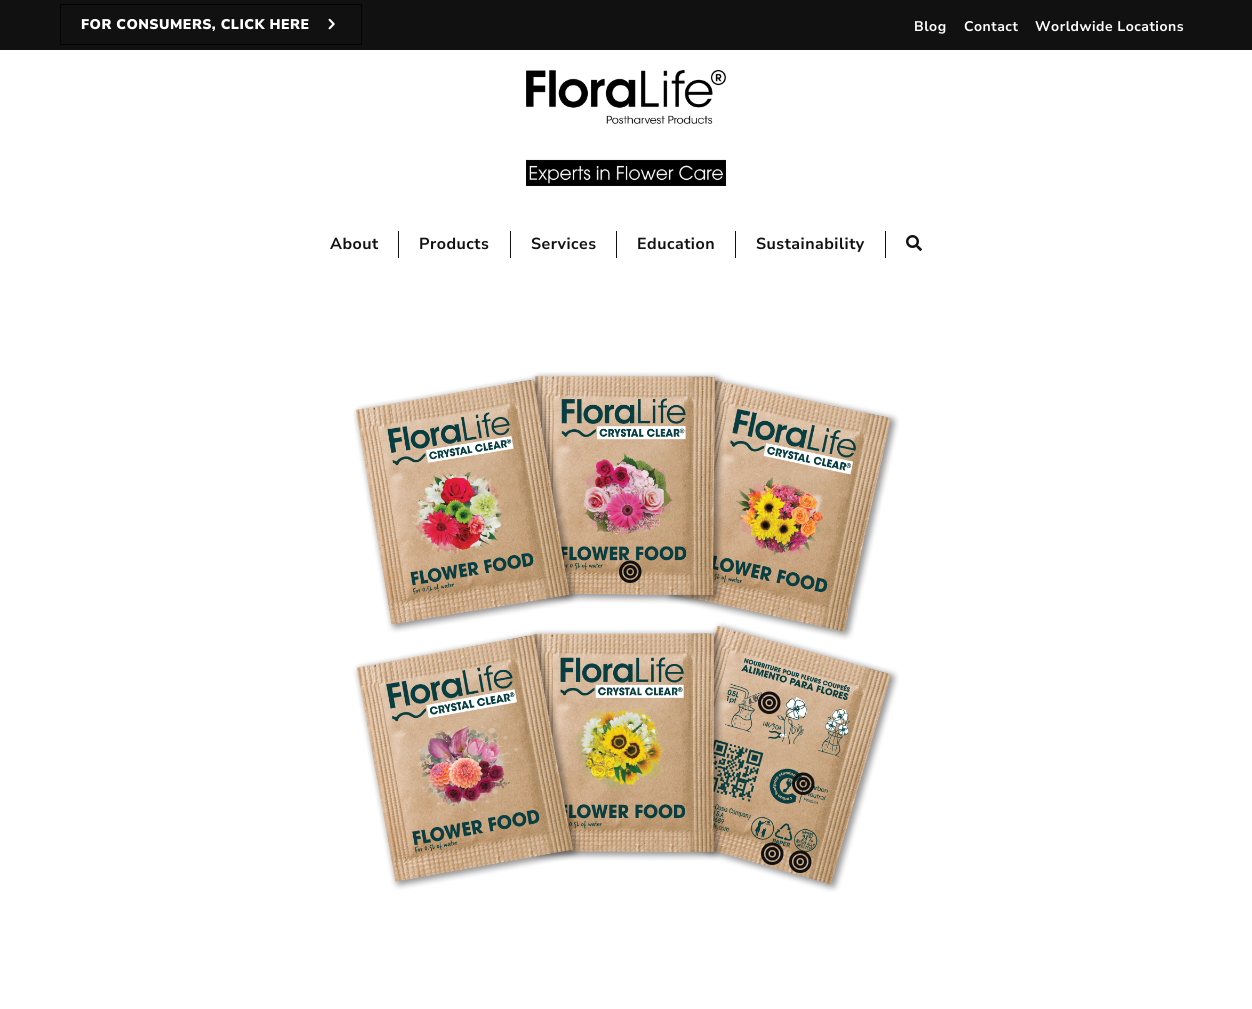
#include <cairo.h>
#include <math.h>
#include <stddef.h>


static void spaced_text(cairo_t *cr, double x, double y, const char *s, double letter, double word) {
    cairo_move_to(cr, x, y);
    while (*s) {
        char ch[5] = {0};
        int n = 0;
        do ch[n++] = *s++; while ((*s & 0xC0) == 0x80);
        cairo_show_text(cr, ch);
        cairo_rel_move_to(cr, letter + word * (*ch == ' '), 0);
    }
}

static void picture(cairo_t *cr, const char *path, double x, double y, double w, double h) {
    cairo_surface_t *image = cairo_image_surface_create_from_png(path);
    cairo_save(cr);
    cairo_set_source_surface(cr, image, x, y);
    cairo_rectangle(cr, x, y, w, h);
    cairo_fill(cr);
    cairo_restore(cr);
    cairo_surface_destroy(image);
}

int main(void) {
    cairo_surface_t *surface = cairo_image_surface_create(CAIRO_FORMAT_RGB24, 1252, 1009);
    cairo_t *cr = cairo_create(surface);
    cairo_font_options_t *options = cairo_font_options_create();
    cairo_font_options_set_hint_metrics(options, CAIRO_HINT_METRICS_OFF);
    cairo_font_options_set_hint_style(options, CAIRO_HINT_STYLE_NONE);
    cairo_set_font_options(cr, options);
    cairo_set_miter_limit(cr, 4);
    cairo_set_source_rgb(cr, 1, 1, 1);
    cairo_paint(cr);
    cairo_set_source_rgb(cr, 0.067, 0.067, 0.067);
    cairo_rectangle(cr, 0, 0, 1252, 50);
    cairo_fill(cr);
    cairo_rectangle(cr, 60.5, 4.5, 301, 40);
    cairo_set_source_rgb(cr, 0.02, 0.02, 0.02);
    cairo_set_line_width(cr, 1);
    cairo_stroke(cr);
    cairo_select_font_face(cr, "Nunito Sans Black", CAIRO_FONT_SLANT_NORMAL, CAIRO_FONT_WEIGHT_NORMAL);
    cairo_set_font_size(cr, 14);
    cairo_set_source_rgb(cr, 1, 1, 1);
    spaced_text(cr, 81, 29, "FOR CONSUMERS, CLICK HERE", 0.5, 0);
    picture(cr, "img1.png", 328, 18, 7, 12);
    cairo_select_font_face(cr, "Nunito Sans", CAIRO_FONT_SLANT_NORMAL, CAIRO_FONT_WEIGHT_BOLD);
    spaced_text(cr, 914, 31, "Blog", 0.5, 0);
    spaced_text(cr, 964, 31, "Contact", 0.5, 0);
    spaced_text(cr, 1035, 31, "Worldwide Locations", 0.5, 0);
    picture(cr, "img2.png", 526, 70, 200, 116);
    cairo_set_font_size(cr, 16);
    cairo_set_source_rgb(cr, 0.067, 0.067, 0.067);
    spaced_text(cr, 330, 249, "About", 0.5, 0);
    cairo_rectangle(cr, 398, 231, 1, 27);
    cairo_fill(cr);
    spaced_text(cr, 419, 249, "Products", 0.5, 0);
    cairo_rectangle(cr, 510, 231, 1, 27);
    cairo_fill(cr);
    spaced_text(cr, 531, 249, "Services", 0.5, 0);
    cairo_rectangle(cr, 616, 231, 1, 27);
    cairo_fill(cr);
    spaced_text(cr, 637, 249, "Education", 0.5, 0);
    cairo_rectangle(cr, 735, 231, 1, 27);
    cairo_fill(cr);
    spaced_text(cr, 756, 249, "Sustainability", 0.5, 0);
    cairo_rectangle(cr, 885, 231, 1, 27);
    cairo_fill(cr);
    picture(cr, "img3.png", 906, 235, 16, 16);
    picture(cr, "img4.png", 353, 372, 546, 520);
    picture(cr, "img5.png", 619, 560, 23, 23);
    picture(cr, "img6.png", 758, 691, 23, 23);
    picture(cr, "img7.png", 792, 772, 23, 23);
    picture(cr, "img8.png", 761, 842, 23, 23);
    picture(cr, "img9.png", 789, 850, 23, 23);
    cairo_surface_write_to_png(surface, "page.png");
    cairo_font_options_destroy(options);
    cairo_destroy(cr);
    cairo_surface_destroy(surface);
    return 0;
}
